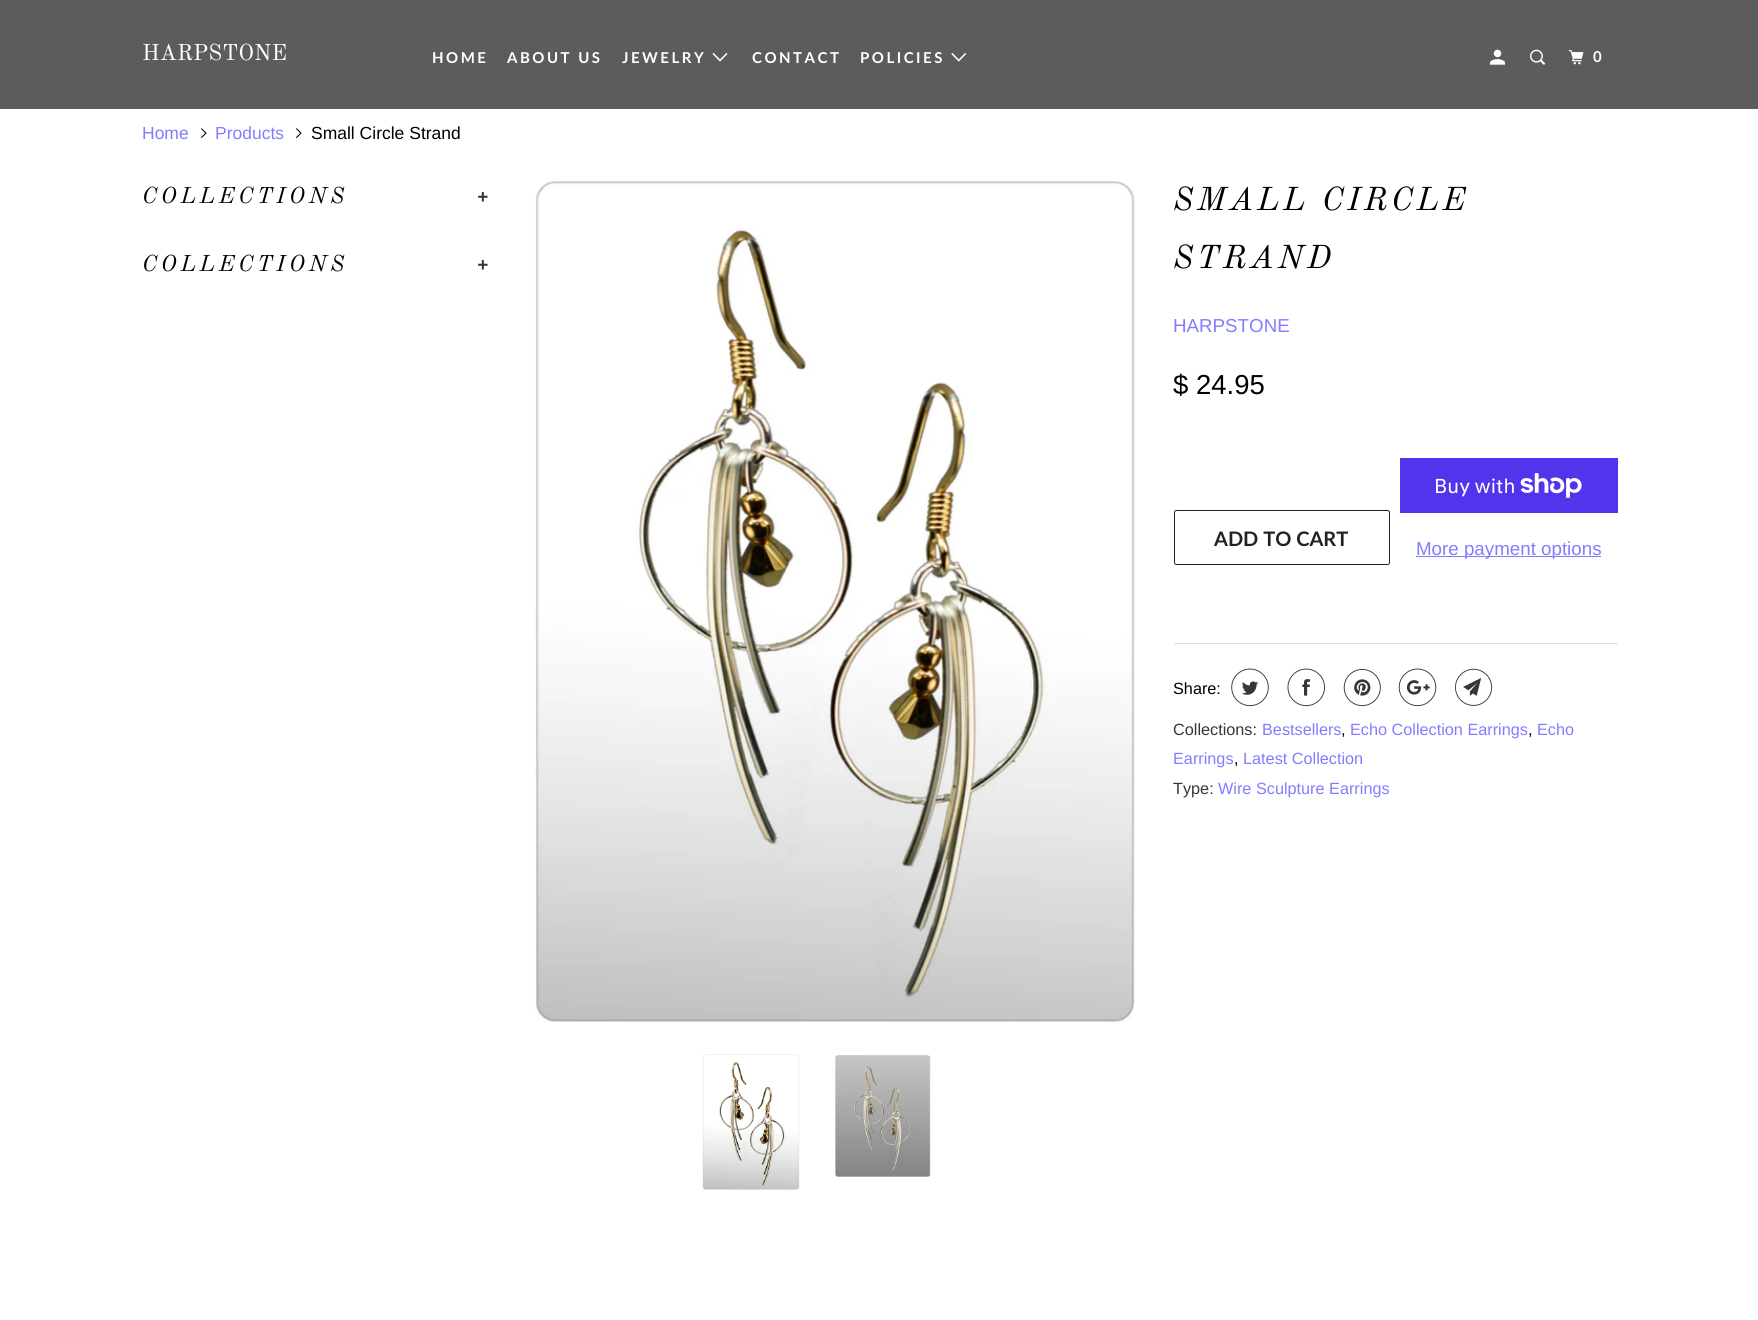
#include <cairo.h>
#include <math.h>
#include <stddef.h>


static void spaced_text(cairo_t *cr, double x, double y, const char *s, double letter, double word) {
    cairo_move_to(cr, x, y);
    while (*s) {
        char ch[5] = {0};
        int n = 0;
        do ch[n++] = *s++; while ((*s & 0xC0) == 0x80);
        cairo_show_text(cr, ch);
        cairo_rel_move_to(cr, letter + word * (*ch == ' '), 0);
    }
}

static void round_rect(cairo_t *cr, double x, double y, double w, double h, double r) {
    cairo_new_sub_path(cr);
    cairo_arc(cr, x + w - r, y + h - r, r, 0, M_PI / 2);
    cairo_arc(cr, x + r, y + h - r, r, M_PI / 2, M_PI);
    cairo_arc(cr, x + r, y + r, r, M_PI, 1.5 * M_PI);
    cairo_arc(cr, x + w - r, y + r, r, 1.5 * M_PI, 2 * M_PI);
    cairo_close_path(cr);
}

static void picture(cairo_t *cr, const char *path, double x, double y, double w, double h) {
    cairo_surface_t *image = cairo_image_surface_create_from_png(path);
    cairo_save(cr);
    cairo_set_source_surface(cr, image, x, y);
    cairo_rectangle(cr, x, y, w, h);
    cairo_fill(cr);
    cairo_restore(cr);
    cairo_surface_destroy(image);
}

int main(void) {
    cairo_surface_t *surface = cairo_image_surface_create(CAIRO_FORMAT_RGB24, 1758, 1320);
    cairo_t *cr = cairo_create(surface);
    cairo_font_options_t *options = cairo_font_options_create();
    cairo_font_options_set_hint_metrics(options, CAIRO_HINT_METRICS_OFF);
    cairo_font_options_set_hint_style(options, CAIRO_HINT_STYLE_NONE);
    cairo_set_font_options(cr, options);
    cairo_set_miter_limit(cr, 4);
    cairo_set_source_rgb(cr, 1, 1, 1);
    cairo_paint(cr);
    cairo_set_source_rgb(cr, 0.361, 0.361, 0.361);
    cairo_rectangle(cr, 0, 0, 1758, 109);
    cairo_fill(cr);
    cairo_select_font_face(cr, "Old Standard TT", CAIRO_FONT_SLANT_NORMAL, CAIRO_FONT_WEIGHT_NORMAL);
    cairo_set_font_size(cr, 22.5);
    cairo_set_source_rgb(cr, 1, 1, 1);
    cairo_move_to(cr, 142, 60);
    cairo_show_text(cr, "HARPSTONE");
    cairo_select_font_face(cr, "Lato", CAIRO_FONT_SLANT_NORMAL, CAIRO_FONT_WEIGHT_BOLD);
    cairo_set_font_size(cr, 15);
    spaced_text(cr, 432, 63, "HOME", 2.5, 0);
    spaced_text(cr, 507, 63, "ABOUT US", 2.5, 0);
    spaced_text(cr, 622, 63, "JEWELRY", 2.5, 0);
    picture(cr, "img1.png", 712, 52, 16, 10);
    spaced_text(cr, 752, 63, "CONTACT", 2.5, 0);
    spaced_text(cr, 860, 63, "POLICIES", 2.5, 0);
    picture(cr, "img2.png", 951, 52, 16, 10);
    picture(cr, "img3.png", 1490, 49, 15, 16);
    picture(cr, "img4.png", 1530, 49, 15, 16);
    picture(cr, "img5.png", 1568, 50, 16, 15);
    spaced_text(cr, 1593, 62, "0", 2.5, 0);
    cairo_select_font_face(cr, "Liberation Sans", CAIRO_FONT_SLANT_NORMAL, CAIRO_FONT_WEIGHT_NORMAL);
    cairo_set_font_size(cr, 17.5);
    cairo_set_source_rgb(cr, 0.514, 0.486, 1);
    cairo_move_to(cr, 142, 139);
    cairo_show_text(cr, "Home");
    picture(cr, "img6.png", 201, 128, 6, 10);
    cairo_move_to(cr, 215, 139);
    cairo_show_text(cr, "Products");
    picture(cr, "img6.png", 296, 128, 6, 10);
    cairo_set_source_rgb(cr, 0, 0, 0);
    cairo_move_to(cr, 311, 139);
    cairo_show_text(cr, "Small Circle Strand");
    cairo_select_font_face(cr, "Old Standard TT", CAIRO_FONT_SLANT_ITALIC, CAIRO_FONT_WEIGHT_NORMAL);
    cairo_set_font_size(cr, 22.5);
    spaced_text(cr, 142, 203, "COLLECTIONS", 3.75, 0);
    cairo_select_font_face(cr, "Liberation Sans", CAIRO_FONT_SLANT_ITALIC, CAIRO_FONT_WEIGHT_BOLD);
    cairo_set_font_size(cr, 18.75);
    cairo_set_source_rgb(cr, 0.212, 0.212, 0.212);
    spaced_text(cr, 477, 203, "+", 3.75, 0);
    cairo_select_font_face(cr, "Old Standard TT", CAIRO_FONT_SLANT_ITALIC, CAIRO_FONT_WEIGHT_NORMAL);
    cairo_set_font_size(cr, 22.5);
    cairo_set_source_rgb(cr, 0, 0, 0);
    spaced_text(cr, 142, 271, "COLLECTIONS", 3.75, 0);
    cairo_select_font_face(cr, "Liberation Sans", CAIRO_FONT_SLANT_ITALIC, CAIRO_FONT_WEIGHT_BOLD);
    cairo_set_font_size(cr, 18.75);
    cairo_set_source_rgb(cr, 0.212, 0.212, 0.212);
    spaced_text(cr, 477, 271, "+", 3.75, 0);
    picture(cr, "img7.png", 535, 181, 600, 842);
    picture(cr, "img8.png", 702, 1054, 98, 136);
    picture(cr, "img9.png", 835, 1055, 96, 122);
    cairo_select_font_face(cr, "Old Standard TT", CAIRO_FONT_SLANT_ITALIC, CAIRO_FONT_WEIGHT_NORMAL);
    cairo_set_font_size(cr, 32.5);
    cairo_set_source_rgb(cr, 0, 0, 0);
    spaced_text(cr, 1173, 210, "SMALL CIRCLE", 3.75, 0);
    spaced_text(cr, 1173, 268, "STRAND", 3.75, 0);
    cairo_select_font_face(cr, "Liberation Sans", CAIRO_FONT_SLANT_NORMAL, CAIRO_FONT_WEIGHT_NORMAL);
    cairo_set_font_size(cr, 18.75);
    cairo_set_source_rgb(cr, 0.514, 0.486, 1);
    cairo_move_to(cr, 1173, 332);
    cairo_show_text(cr, "HARPSTONE");
    cairo_set_font_size(cr, 27.5);
    cairo_set_source_rgb(cr, 0, 0, 0);
    cairo_move_to(cr, 1173, 394);
    cairo_show_text(cr, "$ 24.95");
    round_rect(cr, 1174.5, 510.5, 215, 54, 2);
    cairo_set_source_rgb(cr, 0.133, 0.133, 0.133);
    cairo_set_line_width(cr, 1);
    cairo_stroke(cr);
    cairo_select_font_face(cr, "Lato", CAIRO_FONT_SLANT_NORMAL, CAIRO_FONT_WEIGHT_BOLD);
    cairo_set_font_size(cr, 20);
    cairo_move_to(cr, 1214, 546);
    cairo_show_text(cr, "ADD TO CART");
    cairo_set_source_rgb(cr, 0.329, 0.2, 0.922);
    cairo_rectangle(cr, 1400, 458, 218, 55);
    cairo_fill(cr);
    cairo_select_font_face(cr, "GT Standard", CAIRO_FONT_SLANT_NORMAL, CAIRO_FONT_WEIGHT_NORMAL);
    cairo_set_source_rgb(cr, 1, 1, 1);
    cairo_move_to(cr, 1434, 493);
    cairo_show_text(cr, "Buy with");
    picture(cr, "img10.png", 1520, 473, 62, 25);
    cairo_set_source_rgb(cr, 0.514, 0.486, 1);
    cairo_rectangle(cr, 1416, 556, 185, 1);
    cairo_fill(cr);
    cairo_select_font_face(cr, "Liberation Sans", CAIRO_FONT_SLANT_NORMAL, CAIRO_FONT_WEIGHT_NORMAL);
    cairo_set_font_size(cr, 18.75);
    cairo_move_to(cr, 1416, 555);
    cairo_show_text(cr, "More payment options");
    cairo_set_source_rgb(cr, 0.867, 0.867, 0.867);
    cairo_rectangle(cr, 1174, 643, 444, 1);
    cairo_fill(cr);
    cairo_set_font_size(cr, 16.25);
    cairo_set_source_rgb(cr, 0, 0, 0);
    cairo_move_to(cr, 1173, 694);
    cairo_show_text(cr, "Share:");
    picture(cr, "img11.png", 1231, 668, 38, 39);
    picture(cr, "img12.png", 1287, 668, 38, 39);
    picture(cr, "img13.png", 1343, 669, 38, 38);
    picture(cr, "img14.png", 1398, 668, 39, 39);
    picture(cr, "img15.png", 1455, 668, 38, 38);
    cairo_set_source_rgb(cr, 0.212, 0.212, 0.212);
    cairo_move_to(cr, 1173, 735);
    cairo_show_text(cr, "Collections:");
    cairo_set_source_rgb(cr, 0.514, 0.486, 1);
    cairo_move_to(cr, 1262, 735);
    cairo_show_text(cr, "Bestsellers");
    cairo_set_source_rgb(cr, 0, 0, 0);
    cairo_move_to(cr, 1341, 735);
    cairo_show_text(cr, ",");
    cairo_set_source_rgb(cr, 0.514, 0.486, 1);
    cairo_move_to(cr, 1350, 735);
    cairo_show_text(cr, "Echo Collection Earrings");
    cairo_set_source_rgb(cr, 0, 0, 0);
    cairo_move_to(cr, 1528, 735);
    cairo_show_text(cr, ",");
    cairo_set_source_rgb(cr, 0.514, 0.486, 1);
    cairo_move_to(cr, 1537, 735);
    cairo_show_text(cr, "Echo");
    cairo_move_to(cr, 1173, 764);
    cairo_show_text(cr, "Earrings");
    cairo_set_source_rgb(cr, 0, 0, 0);
    cairo_move_to(cr, 1234, 764);
    cairo_show_text(cr, ",");
    cairo_set_source_rgb(cr, 0.514, 0.486, 1);
    cairo_move_to(cr, 1243, 764);
    cairo_show_text(cr, "Latest Collection");
    cairo_set_source_rgb(cr, 0.212, 0.212, 0.212);
    cairo_move_to(cr, 1173, 794);
    cairo_show_text(cr, "Type:");
    cairo_set_source_rgb(cr, 0.514, 0.486, 1);
    cairo_move_to(cr, 1218, 794);
    cairo_show_text(cr, "Wire Sculpture Earrings");
    cairo_surface_write_to_png(surface, "page.png");
    cairo_font_options_destroy(options);
    cairo_destroy(cr);
    cairo_surface_destroy(surface);
    return 0;
}
